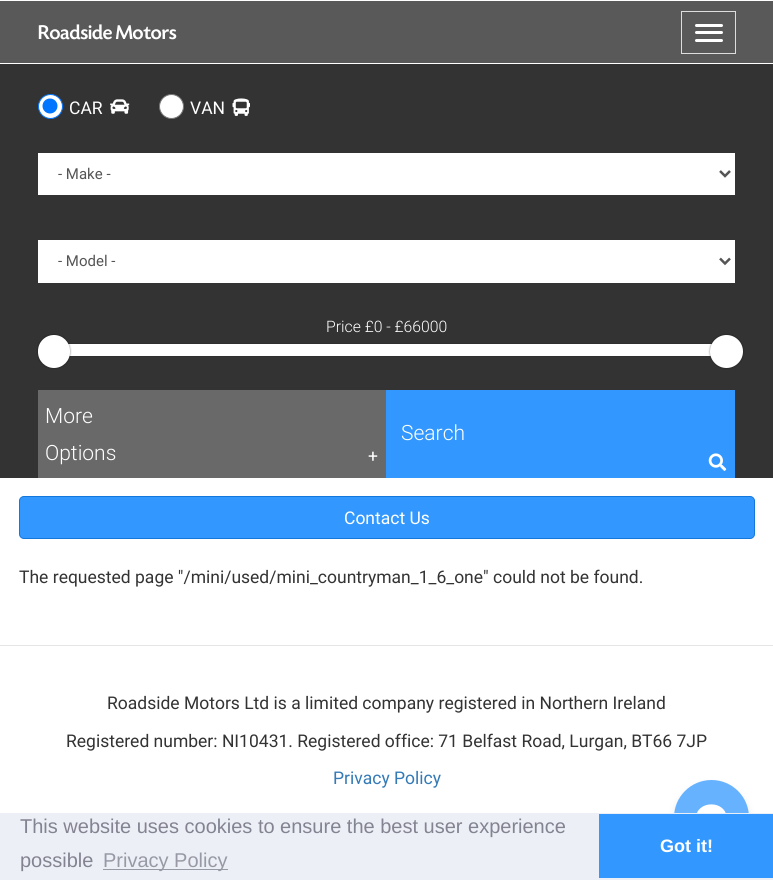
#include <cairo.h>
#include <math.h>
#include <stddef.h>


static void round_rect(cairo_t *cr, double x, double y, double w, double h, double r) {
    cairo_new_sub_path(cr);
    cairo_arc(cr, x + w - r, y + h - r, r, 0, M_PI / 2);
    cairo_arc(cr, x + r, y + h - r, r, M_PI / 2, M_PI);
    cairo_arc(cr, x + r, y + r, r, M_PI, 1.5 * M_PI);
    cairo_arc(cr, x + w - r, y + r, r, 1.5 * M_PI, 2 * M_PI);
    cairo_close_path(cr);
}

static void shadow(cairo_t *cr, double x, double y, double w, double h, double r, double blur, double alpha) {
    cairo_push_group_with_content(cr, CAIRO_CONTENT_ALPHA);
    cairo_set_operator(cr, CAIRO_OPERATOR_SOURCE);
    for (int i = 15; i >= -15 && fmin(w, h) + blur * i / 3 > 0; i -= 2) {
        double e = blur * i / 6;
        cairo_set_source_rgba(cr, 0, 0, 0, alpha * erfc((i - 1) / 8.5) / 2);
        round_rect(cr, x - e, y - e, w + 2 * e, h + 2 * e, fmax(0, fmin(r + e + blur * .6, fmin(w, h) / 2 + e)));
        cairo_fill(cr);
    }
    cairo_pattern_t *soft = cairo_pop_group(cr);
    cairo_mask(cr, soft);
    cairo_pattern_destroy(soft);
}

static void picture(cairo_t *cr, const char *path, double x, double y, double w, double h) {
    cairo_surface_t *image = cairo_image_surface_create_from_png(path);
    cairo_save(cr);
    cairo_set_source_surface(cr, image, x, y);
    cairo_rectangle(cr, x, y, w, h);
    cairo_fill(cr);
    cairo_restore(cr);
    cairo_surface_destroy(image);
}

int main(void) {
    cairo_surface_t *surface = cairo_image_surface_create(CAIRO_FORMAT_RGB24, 773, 880);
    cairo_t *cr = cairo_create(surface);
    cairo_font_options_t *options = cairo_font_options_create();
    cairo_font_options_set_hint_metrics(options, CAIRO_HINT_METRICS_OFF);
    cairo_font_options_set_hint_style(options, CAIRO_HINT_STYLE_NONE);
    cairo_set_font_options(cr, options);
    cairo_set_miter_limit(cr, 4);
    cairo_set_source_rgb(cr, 1, 1, 1);
    cairo_paint(cr);
    cairo_set_source_rgb(cr, 0.349, 0.349, 0.349);
    cairo_rectangle(cr, 0, 1, 773, 62);
    cairo_fill(cr);
    cairo_select_font_face(cr, "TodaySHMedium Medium", CAIRO_FONT_SLANT_NORMAL, CAIRO_FONT_WEIGHT_NORMAL);
    cairo_set_font_size(cr, 21);
    cairo_set_source_rgb(cr, 1, 1, 1);
    cairo_move_to(cr, 38, 39);
    cairo_show_text(cr, "Roadside Motors");
    cairo_rectangle(cr, 681.5, 11.5, 54, 42);
    cairo_set_source_rgb(cr, 0.867, 0.867, 0.867);
    cairo_set_line_width(cr, 1);
    cairo_stroke(cr);
    cairo_set_source_rgb(cr, 1, 1, 1);
    round_rect(cr, 695, 24, 28, 3, 1.5);
    cairo_fill(cr);
    round_rect(cr, 695, 31, 28, 3, 1.5);
    cairo_fill(cr);
    round_rect(cr, 695, 39, 28, 3, 1.5);
    cairo_fill(cr);
    cairo_set_source_rgb(cr, 0.2, 0.2, 0.2);
    cairo_rectangle(cr, 0, 64, 773, 414);
    cairo_fill(cr);
    cairo_set_source_rgb(cr, 1, 1, 1);
    cairo_arc(cr, 50.5, 106.5, 12, 0, 2 * M_PI);
    cairo_fill_preserve(cr);
    cairo_set_source_rgb(cr, 0, 0.459, 1);
    cairo_stroke(cr);
    cairo_arc(cr, 50, 106, 7.5, 0, 2 * M_PI);
    cairo_fill(cr);
    cairo_select_font_face(cr, "Roboto", CAIRO_FONT_SLANT_NORMAL, CAIRO_FONT_WEIGHT_NORMAL);
    cairo_set_font_size(cr, 17.5);
    cairo_set_source_rgb(cr, 1, 1, 1);
    cairo_move_to(cr, 69, 114);
    cairo_show_text(cr, "CAR");
    picture(cr, "img1.png", 110, 99, 20, 15);
    cairo_arc(cr, 171.5, 106.5, 12, 0, 2 * M_PI);
    cairo_fill_preserve(cr);
    cairo_set_source_rgb(cr, 0.463, 0.463, 0.463);
    cairo_stroke(cr);
    cairo_set_source_rgb(cr, 1, 1, 1);
    cairo_move_to(cr, 190, 114);
    cairo_show_text(cr, "VAN");
    picture(cr, "img2.png", 232, 98, 18, 18);
    cairo_rectangle(cr, 38, 153, 697, 42);
    cairo_fill(cr);
    cairo_new_path(cr);
    cairo_move_to(cr, 720, 171);
    cairo_line_to(cr, 725, 176);
    cairo_line_to(cr, 730, 171);
    cairo_set_source_rgb(cr, 0.333, 0.333, 0.333);
    cairo_set_line_width(cr, 2.5);
    cairo_stroke(cr);
    cairo_set_font_size(cr, 15);
    cairo_move_to(cr, 58, 179);
    cairo_show_text(cr, "- Make -");
    cairo_set_source_rgb(cr, 1, 1, 1);
    cairo_rectangle(cr, 38, 240, 697, 43);
    cairo_fill(cr);
    cairo_new_path(cr);
    cairo_move_to(cr, 720, 258.5);
    cairo_line_to(cr, 725, 263.5);
    cairo_line_to(cr, 730, 258.5);
    cairo_set_source_rgb(cr, 0.333, 0.333, 0.333);
    cairo_stroke(cr);
    cairo_move_to(cr, 58, 266);
    cairo_show_text(cr, "- Model -");
    cairo_select_font_face(cr, "Roboto Light", CAIRO_FONT_SLANT_NORMAL, CAIRO_FONT_WEIGHT_NORMAL);
    cairo_set_font_size(cr, 15.75);
    cairo_set_source_rgb(cr, 1, 1, 1);
    cairo_move_to(cr, 326, 332);
    cairo_show_text(cr, "Price £0 - £66000");
    cairo_set_source_rgb(cr, 0, 0, 0);
    shadow(cr, 51, 344, 673, 12, 5, 0.5, 0.3);
    cairo_set_source_rgb(cr, 1, 1, 1);
    cairo_rectangle(cr, 68, 344, 644, 12);
    cairo_fill(cr);
    cairo_set_source_rgb(cr, 0, 0, 0);
    shadow(cr, 38, 335, 32, 33, 16, 1, 0.5);
    cairo_set_source_rgb(cr, 1, 1, 1);
    round_rect(cr, 38, 335, 32, 33, 16);
    cairo_fill(cr);
    cairo_set_source_rgb(cr, 0, 0, 0);
    shadow(cr, 710, 335, 33, 33, 16.5, 1, 0.5);
    cairo_set_source_rgb(cr, 1, 1, 1);
    cairo_arc(cr, 726.5, 351.5, 16.5, 0, 2 * M_PI);
    cairo_fill(cr);
    cairo_set_source_rgb(cr, 0.412, 0.412, 0.412);
    cairo_rectangle(cr, 38, 390, 348, 88);
    cairo_fill(cr);
    cairo_set_font_size(cr, 21);
    cairo_set_source_rgb(cr, 1, 1, 1);
    cairo_move_to(cr, 45, 423);
    cairo_show_text(cr, "More");
    cairo_move_to(cr, 45, 460);
    cairo_show_text(cr, "Options");
    cairo_select_font_face(cr, "Roboto", CAIRO_FONT_SLANT_NORMAL, CAIRO_FONT_WEIGHT_NORMAL);
    cairo_set_font_size(cr, 17.5);
    cairo_move_to(cr, 368, 462);
    cairo_show_text(cr, "+");
    cairo_set_source_rgb(cr, 0.196, 0.596, 1);
    cairo_rectangle(cr, 386, 390, 349, 88);
    cairo_fill(cr);
    cairo_select_font_face(cr, "Roboto Light", CAIRO_FONT_SLANT_NORMAL, CAIRO_FONT_WEIGHT_NORMAL);
    cairo_set_font_size(cr, 21);
    cairo_set_source_rgb(cr, 1, 1, 1);
    cairo_move_to(cr, 401, 440);
    cairo_show_text(cr, "Search");
    picture(cr, "img3.png", 708, 453, 19, 18);
    cairo_set_source_rgb(cr, 0.196, 0.596, 1);
    round_rect(cr, 19.5, 496.5, 735, 42, 4.5);
    cairo_fill_preserve(cr);
    cairo_set_source_rgb(cr, 0.078, 0.467, 0.863);
    cairo_set_line_width(cr, 1);
    cairo_stroke(cr);
    cairo_select_font_face(cr, "Roboto", CAIRO_FONT_SLANT_NORMAL, CAIRO_FONT_WEIGHT_NORMAL);
    cairo_set_font_size(cr, 17.5);
    cairo_set_source_rgb(cr, 1, 1, 1);
    cairo_move_to(cr, 344, 524);
    cairo_show_text(cr, "Contact Us");
    cairo_set_source_rgb(cr, 0.2, 0.2, 0.2);
    cairo_move_to(cr, 19, 583);
    cairo_show_text(cr, "The requested page \"/mini/used/mini_countryman_1_6_one\" could not be found.");
    cairo_set_source_rgb(cr, 0.898, 0.898, 0.898);
    cairo_rectangle(cr, 0, 645, 773, 1);
    cairo_fill(cr);
    cairo_set_source_rgb(cr, 0.2, 0.2, 0.2);
    cairo_move_to(cr, 107, 709);
    cairo_show_text(cr, "Roadside Motors Ltd is a limited company registered in Northern Ireland");
    cairo_move_to(cr, 66, 747);
    cairo_show_text(cr, "Registered number: NI10431. Registered office: 71 Belfast Road, Lurgan, BT66 7JP");
    cairo_set_source_rgb(cr, 0.2, 0.478, 0.718);
    cairo_move_to(cr, 333, 784);
    cairo_show_text(cr, "Privacy Policy");
    cairo_set_source_rgb(cr, 0, 0, 0);
    shadow(cr, 674, 785, 75, 75, 37.5, 4, 0.1);
    cairo_set_source_rgb(cr, 0.4, 0.698, 1);
    cairo_arc(cr, 711.5, 817.5, 37.5, 0, 2 * M_PI);
    cairo_fill(cr);
    picture(cr, "img4.png", 697, 804, 29, 9);
    cairo_set_source_rgb(cr, 0.929, 0.937, 0.961);
    cairo_rectangle(cr, 0, 813, 773, 67);
    cairo_fill(cr);
    cairo_select_font_face(cr, "Liberation Sans", CAIRO_FONT_SLANT_NORMAL, CAIRO_FONT_WEIGHT_NORMAL);
    cairo_set_font_size(cr, 20);
    cairo_set_source_rgb(cr, 0.514, 0.514, 0.569);
    cairo_move_to(cr, 20, 833);
    cairo_show_text(cr, "This website uses cookies to ensure the best user experience");
    cairo_move_to(cr, 20, 867);
    cairo_show_text(cr, "possible");
    cairo_set_source_rgb(cr, 0.596, 0.6, 0.647);
    cairo_rectangle(cr, 103, 869, 125, 1);
    cairo_fill(cr);
    cairo_move_to(cr, 103, 867);
    cairo_show_text(cr, "Privacy Policy");
    cairo_set_source_rgb(cr, 0.196, 0.596, 1);
    cairo_rectangle(cr, 599, 814, 174, 64);
    cairo_fill(cr);
    cairo_select_font_face(cr, "Liberation Sans", CAIRO_FONT_SLANT_NORMAL, CAIRO_FONT_WEIGHT_BOLD);
    cairo_set_font_size(cr, 18);
    cairo_set_source_rgb(cr, 1, 1, 1);
    cairo_move_to(cr, 660, 852);
    cairo_show_text(cr, "Got it!");
    cairo_surface_write_to_png(surface, "page.png");
    cairo_font_options_destroy(options);
    cairo_destroy(cr);
    cairo_surface_destroy(surface);
    return 0;
}
